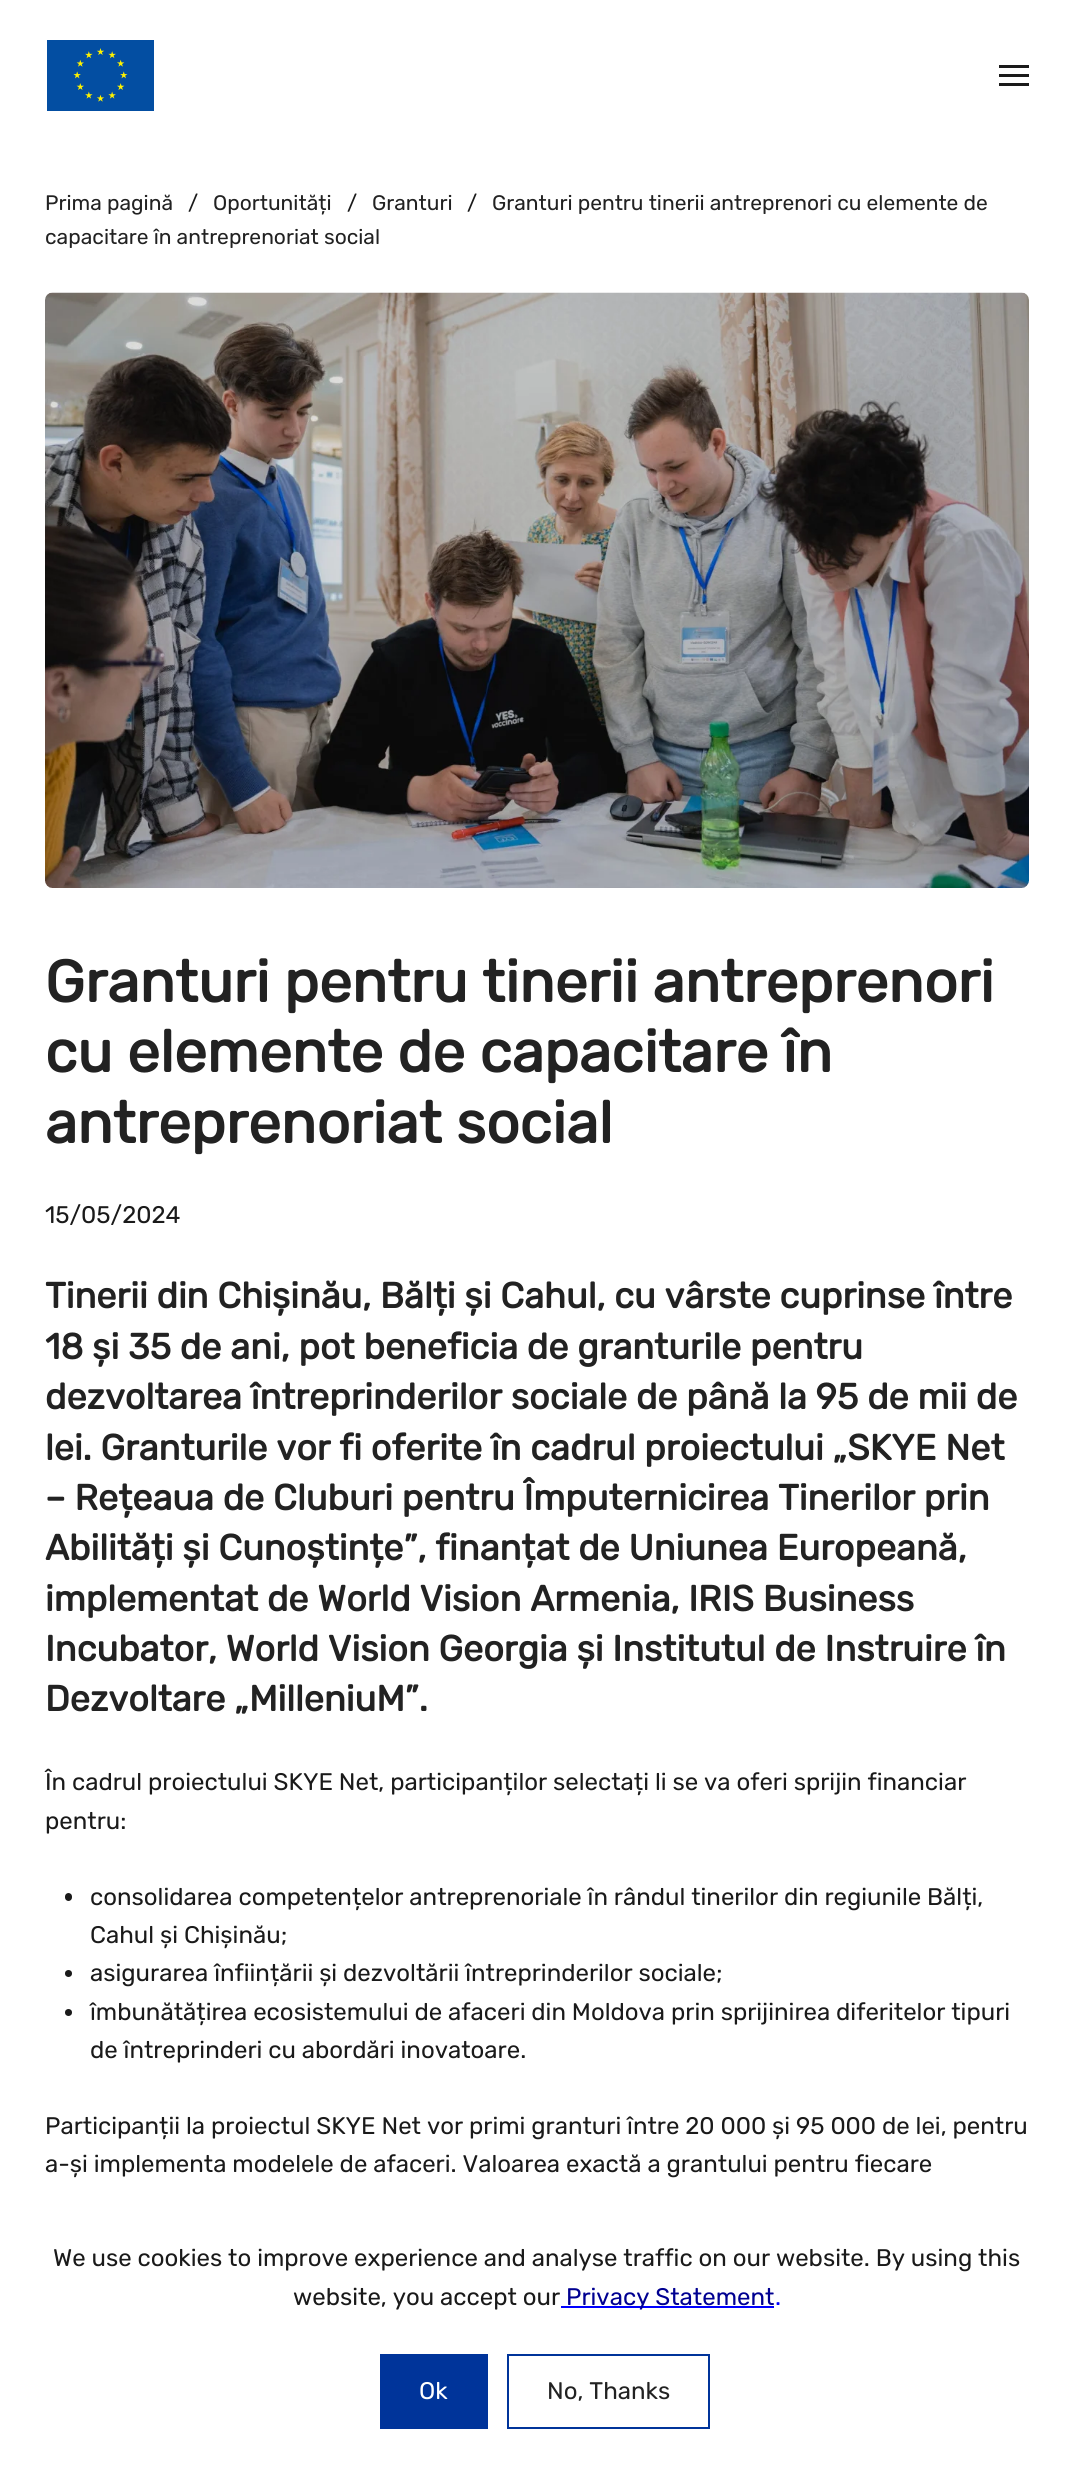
#include <cairo.h>
#include <math.h>
#include <stddef.h>


static void round_rect(cairo_t *cr, double x, double y, double w, double h, double r) {
    cairo_new_sub_path(cr);
    cairo_arc(cr, x + w - r, y + h - r, r, 0, M_PI / 2);
    cairo_arc(cr, x + r, y + h - r, r, M_PI / 2, M_PI);
    cairo_arc(cr, x + r, y + r, r, M_PI, 1.5 * M_PI);
    cairo_arc(cr, x + w - r, y + r, r, 1.5 * M_PI, 2 * M_PI);
    cairo_close_path(cr);
}

static void picture(cairo_t *cr, const char *path, double x, double y, double w, double h) {
    cairo_surface_t *image = cairo_image_surface_create_from_png(path);
    cairo_save(cr);
    cairo_set_source_surface(cr, image, x, y);
    cairo_rectangle(cr, x, y, w, h);
    cairo_fill(cr);
    cairo_restore(cr);
    cairo_surface_destroy(image);
}

int main(void) {
    cairo_surface_t *surface = cairo_image_surface_create(CAIRO_FORMAT_RGB24, 1074, 2465);
    cairo_t *cr = cairo_create(surface);
    cairo_font_options_t *options = cairo_font_options_create();
    cairo_font_options_set_hint_metrics(options, CAIRO_HINT_METRICS_OFF);
    cairo_font_options_set_hint_style(options, CAIRO_HINT_STYLE_NONE);
    cairo_set_font_options(cr, options);
    cairo_set_miter_limit(cr, 4);
    cairo_set_source_rgb(cr, 1, 1, 1);
    cairo_paint(cr);
    picture(cr, "img1.png", 47, 40, 107, 71);
    cairo_set_source_rgb(cr, 0.102, 0.102, 0.102);
    cairo_rectangle(cr, 999, 65, 30, 3);
    cairo_fill(cr);
    cairo_rectangle(cr, 999, 74, 30, 3);
    cairo_fill(cr);
    cairo_rectangle(cr, 999, 83, 30, 3);
    cairo_fill(cr);
    cairo_select_font_face(cr, "Rubik Light", CAIRO_FONT_SLANT_NORMAL, CAIRO_FONT_WEIGHT_NORMAL);
    cairo_set_font_size(cr, 21);
    cairo_move_to(cr, 467, 210);
    cairo_show_text(cr, "/");
    cairo_set_source_rgb(cr, 0.133, 0.133, 0.133);
    cairo_move_to(cr, 492, 210);
    cairo_show_text(cr, "Granturi pentru tinerii antreprenori cu elemente de");
    cairo_move_to(cr, 45, 244);
    cairo_show_text(cr, "capacitare în antreprenoriat social");
    cairo_move_to(cr, 45, 210);
    cairo_show_text(cr, "Prima pagină");
    cairo_set_source_rgb(cr, 0.102, 0.102, 0.102);
    cairo_move_to(cr, 188, 210);
    cairo_show_text(cr, "/");
    cairo_set_source_rgb(cr, 0.133, 0.133, 0.133);
    cairo_move_to(cr, 213, 210);
    cairo_show_text(cr, "Oportunități");
    cairo_set_source_rgb(cr, 0.102, 0.102, 0.102);
    cairo_move_to(cr, 347, 210);
    cairo_show_text(cr, "/");
    cairo_set_source_rgb(cr, 0.133, 0.133, 0.133);
    cairo_move_to(cr, 372, 210);
    cairo_show_text(cr, "Granturi");
    picture(cr, "img2.png", 45, 292, 984, 596);
    cairo_select_font_face(cr, "Rubik", CAIRO_FONT_SLANT_NORMAL, CAIRO_FONT_WEIGHT_BOLD);
    cairo_set_font_size(cr, 58.6);
    cairo_move_to(cr, 45, 1002);
    cairo_show_text(cr, "Granturi pentru tinerii antreprenori");
    cairo_move_to(cr, 45, 1072);
    cairo_show_text(cr, "cu elemente de capacitare în");
    cairo_move_to(cr, 45, 1143);
    cairo_show_text(cr, "antreprenoriat social");
    cairo_select_font_face(cr, "Rubik Light", CAIRO_FONT_SLANT_NORMAL, CAIRO_FONT_WEIGHT_NORMAL);
    cairo_set_font_size(cr, 24);
    cairo_set_source_rgb(cr, 0.102, 0.102, 0.102);
    cairo_move_to(cr, 45, 1223);
    cairo_show_text(cr, "15/05/2024");
    cairo_select_font_face(cr, "Rubik", CAIRO_FONT_SLANT_NORMAL, CAIRO_FONT_WEIGHT_BOLD);
    cairo_set_font_size(cr, 36);
    cairo_set_source_rgb(cr, 0.133, 0.133, 0.133);
    cairo_move_to(cr, 45, 1308);
    cairo_show_text(cr, "Tinerii din Chișinău, Bălți și Cahul, cu vârste cuprinse între");
    cairo_move_to(cr, 45, 1359);
    cairo_show_text(cr, "18 și 35 de ani, pot beneficia de granturile pentru");
    cairo_move_to(cr, 45, 1409);
    cairo_show_text(cr, "dezvoltarea întreprinderilor sociale de până la 95 de mii de");
    cairo_move_to(cr, 45, 1460);
    cairo_show_text(cr, "lei. Granturile vor fi oferite în cadrul proiectului „SKYE Net");
    cairo_move_to(cr, 45, 1510);
    cairo_show_text(cr, "– Rețeaua de Cluburi pentru Împuternicirea Tinerilor prin");
    cairo_move_to(cr, 45, 1560);
    cairo_show_text(cr, "Abilități și Cunoștințe”, finanțat de Uniunea Europeană,");
    cairo_move_to(cr, 45, 1611);
    cairo_show_text(cr, "implementat de World Vision Armenia, IRIS Business");
    cairo_move_to(cr, 45, 1661);
    cairo_show_text(cr, "Incubator, World Vision Georgia și Institutul de Instruire în");
    cairo_move_to(cr, 45, 1711);
    cairo_show_text(cr, "Dezvoltare „MilleniuM”.");
    cairo_select_font_face(cr, "Rubik Light", CAIRO_FONT_SLANT_NORMAL, CAIRO_FONT_WEIGHT_NORMAL);
    cairo_set_font_size(cr, 24);
    cairo_set_source_rgb(cr, 0.102, 0.102, 0.102);
    cairo_move_to(cr, 45, 1790);
    cairo_show_text(cr, "În cadrul proiectului SKYE Net, participanților selectați li se va oferi sprijin financiar");
    cairo_move_to(cr, 45, 1829);
    cairo_show_text(cr, "pentru:");
    round_rect(cr, 65, 1893, 7, 8, 3.5);
    cairo_fill(cr);
    cairo_move_to(cr, 90, 1905);
    cairo_show_text(cr, "consolidarea competențelor antreprenoriale în rândul tinerilor din regiunile Bălți,");
    cairo_move_to(cr, 90, 1943);
    cairo_show_text(cr, "Cahul și Chișinău;");
    cairo_new_path(cr);
    cairo_arc(cr, 68.5, 1973.5, 3.5, 0, 2 * M_PI);
    cairo_fill(cr);
    cairo_move_to(cr, 90, 1981);
    cairo_show_text(cr, "asigurarea înființării și dezvoltării întreprinderilor sociale;");
    cairo_new_path(cr);
    cairo_arc(cr, 68.5, 2012.5, 3.5, 0, 2 * M_PI);
    cairo_fill(cr);
    cairo_move_to(cr, 90, 2020);
    cairo_show_text(cr, "îmbunătățirea ecosistemului de afaceri din Moldova prin sprijinirea diferitelor tipuri");
    cairo_move_to(cr, 90, 2058);
    cairo_show_text(cr, "de întreprinderi cu abordări inovatoare.");
    cairo_move_to(cr, 45, 2134);
    cairo_show_text(cr, "Participanții la proiectul SKYE Net vor primi granturi între 20 000 și 95 000 de lei, pentru");
    cairo_move_to(cr, 45, 2172);
    cairo_show_text(cr, "a-și implementa modelele de afaceri. Valoarea exactă a grantului pentru fiecare");
    cairo_move_to(cr, 53, 2266);
    cairo_show_text(cr, "We use cookies to improve experience and analyse traffic on our website. By using this");
    cairo_move_to(cr, 293, 2305);
    cairo_show_text(cr, "website, you accept our");
    cairo_set_source_rgb(cr, 0, 0, 1);
    cairo_rectangle(cr, 561, 2306, 213, 2);
    cairo_fill(cr);
    cairo_set_source_rgb(cr, 0, 0, 0.569);
    cairo_move_to(cr, 566, 2305);
    cairo_show_text(cr, "Privacy Statement");
    cairo_set_source_rgb(cr, 0, 0, 1);
    cairo_move_to(cr, 775, 2305);
    cairo_show_text(cr, ".");
    cairo_set_source_rgb(cr, 0, 0.204, 0.604);
    cairo_rectangle(cr, 380, 2354, 108, 75);
    cairo_fill(cr);
    cairo_set_source_rgb(cr, 1, 1, 1);
    cairo_move_to(cr, 419, 2399);
    cairo_show_text(cr, "Ok");
    cairo_rectangle(cr, 508, 2355, 201, 73);
    cairo_set_source_rgb(cr, 0, 0.204, 0.604);
    cairo_stroke(cr);
    cairo_set_source_rgb(cr, 0.133, 0.133, 0.133);
    cairo_move_to(cr, 547, 2399);
    cairo_show_text(cr, "No, Thanks");
    cairo_surface_write_to_png(surface, "page.png");
    cairo_font_options_destroy(options);
    cairo_destroy(cr);
    cairo_surface_destroy(surface);
    return 0;
}
